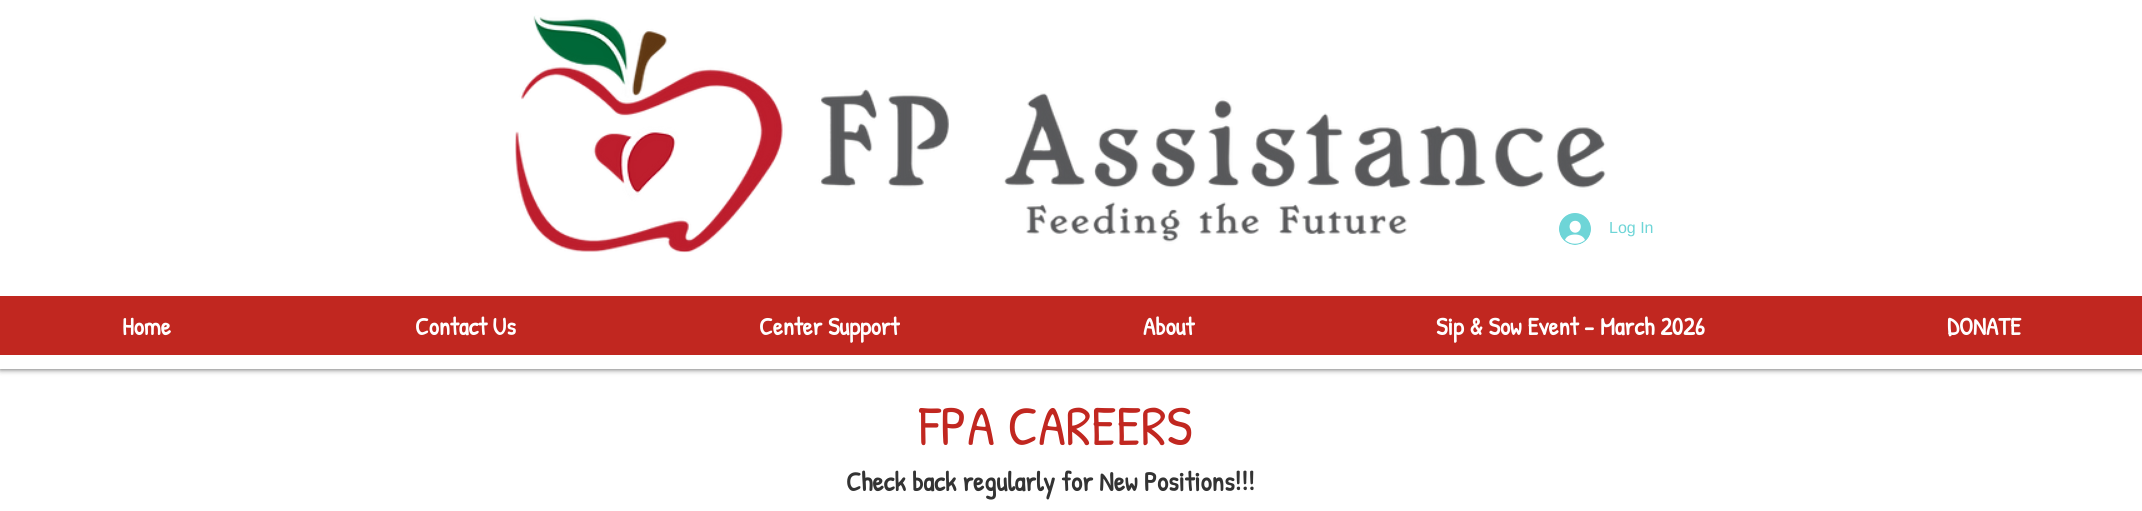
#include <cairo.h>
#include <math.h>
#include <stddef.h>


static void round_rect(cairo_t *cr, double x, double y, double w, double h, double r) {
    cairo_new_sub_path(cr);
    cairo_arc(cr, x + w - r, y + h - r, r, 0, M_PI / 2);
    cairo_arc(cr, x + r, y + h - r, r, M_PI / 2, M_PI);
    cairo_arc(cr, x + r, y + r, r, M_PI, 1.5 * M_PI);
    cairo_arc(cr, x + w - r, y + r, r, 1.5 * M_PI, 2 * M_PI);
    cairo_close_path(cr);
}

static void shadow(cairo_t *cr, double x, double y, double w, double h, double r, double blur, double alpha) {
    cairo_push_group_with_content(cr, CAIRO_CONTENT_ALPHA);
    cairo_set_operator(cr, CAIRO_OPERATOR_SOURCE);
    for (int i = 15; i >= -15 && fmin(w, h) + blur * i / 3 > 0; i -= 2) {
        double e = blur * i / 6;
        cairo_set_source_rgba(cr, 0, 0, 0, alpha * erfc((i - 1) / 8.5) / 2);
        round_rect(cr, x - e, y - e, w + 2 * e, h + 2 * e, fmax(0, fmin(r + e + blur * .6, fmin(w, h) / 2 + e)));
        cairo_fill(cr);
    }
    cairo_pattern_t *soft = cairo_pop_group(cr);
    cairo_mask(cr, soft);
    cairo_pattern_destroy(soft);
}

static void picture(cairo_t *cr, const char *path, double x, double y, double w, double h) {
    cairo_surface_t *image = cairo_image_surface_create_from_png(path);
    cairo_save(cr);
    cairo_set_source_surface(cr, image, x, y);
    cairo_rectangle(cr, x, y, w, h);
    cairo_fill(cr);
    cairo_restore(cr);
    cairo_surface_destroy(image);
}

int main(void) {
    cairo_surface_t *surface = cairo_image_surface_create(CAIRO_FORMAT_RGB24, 2142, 511);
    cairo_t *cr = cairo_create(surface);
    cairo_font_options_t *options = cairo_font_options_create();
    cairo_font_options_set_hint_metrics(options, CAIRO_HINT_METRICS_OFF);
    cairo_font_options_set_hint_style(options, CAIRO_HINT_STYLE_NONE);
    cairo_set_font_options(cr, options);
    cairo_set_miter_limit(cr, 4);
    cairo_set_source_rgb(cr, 1, 1, 1);
    cairo_paint(cr);
    cairo_set_source_rgb(cr, 0, 0, 0);
    shadow(cr, 0, 0, 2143, 369, 0, 3, 0.7);
    cairo_set_source_rgb(cr, 1, 1, 1);
    cairo_rectangle(cr, 0, 0, 2142, 369);
    cairo_fill(cr);
    picture(cr, "img1.png", 515, 15, 1091, 238);
    picture(cr, "img2.png", 1559, 213, 32, 32);
    cairo_select_font_face(cr, "Liberation Sans", CAIRO_FONT_SLANT_NORMAL, CAIRO_FONT_WEIGHT_NORMAL);
    cairo_set_font_size(cr, 16);
    cairo_set_source_rgb(cr, 0.431, 0.835, 0.843);
    cairo_move_to(cr, 1609, 233);
    cairo_show_text(cr, "Log In");
    cairo_set_source_rgb(cr, 0.757, 0.153, 0.125);
    cairo_rectangle(cr, 0, 296, 2142, 59);
    cairo_fill(cr);
    cairo_select_font_face(cr, "Patrick Hand", CAIRO_FONT_SLANT_NORMAL, CAIRO_FONT_WEIGHT_BOLD);
    cairo_set_font_size(cr, 25);
    cairo_set_source_rgb(cr, 1, 1, 1);
    cairo_move_to(cr, 122, 335);
    cairo_show_text(cr, "Home");
    cairo_move_to(cr, 415, 335);
    cairo_show_text(cr, "Contact Us");
    cairo_move_to(cr, 759, 335);
    cairo_show_text(cr, "Center Support");
    cairo_move_to(cr, 1143, 335);
    cairo_show_text(cr, "About");
    cairo_move_to(cr, 1436, 335);
    cairo_show_text(cr, "Sip & Sow Event - March 2026");
    cairo_move_to(cr, 1947, 335);
    cairo_show_text(cr, "DONATE");
    cairo_select_font_face(cr, "Patrick Hand", CAIRO_FONT_SLANT_NORMAL, CAIRO_FONT_WEIGHT_NORMAL);
    cairo_set_font_size(cr, 56.25);
    cairo_set_source_rgb(cr, 0.757, 0.153, 0.125);
    cairo_move_to(cr, 919, 445);
    cairo_show_text(cr, "FPA CAREERS");
    cairo_select_font_face(cr, "Patrick Hand", CAIRO_FONT_SLANT_NORMAL, CAIRO_FONT_WEIGHT_BOLD);
    cairo_set_font_size(cr, 27.5);
    cairo_set_source_rgb(cr, 0.2, 0.2, 0.2);
    cairo_move_to(cr, 846, 491);
    cairo_show_text(cr, "Check back regularly for New Positions!!!");
    cairo_surface_write_to_png(surface, "page.png");
    cairo_font_options_destroy(options);
    cairo_destroy(cr);
    cairo_surface_destroy(surface);
    return 0;
}
